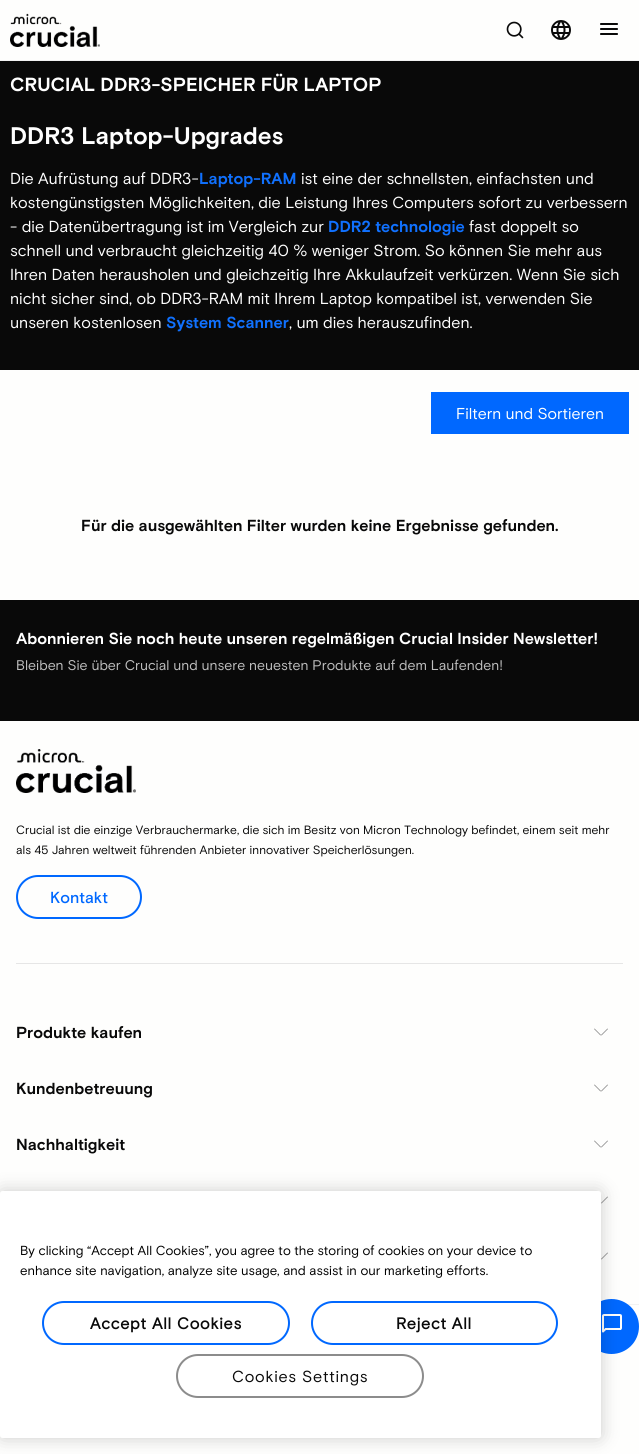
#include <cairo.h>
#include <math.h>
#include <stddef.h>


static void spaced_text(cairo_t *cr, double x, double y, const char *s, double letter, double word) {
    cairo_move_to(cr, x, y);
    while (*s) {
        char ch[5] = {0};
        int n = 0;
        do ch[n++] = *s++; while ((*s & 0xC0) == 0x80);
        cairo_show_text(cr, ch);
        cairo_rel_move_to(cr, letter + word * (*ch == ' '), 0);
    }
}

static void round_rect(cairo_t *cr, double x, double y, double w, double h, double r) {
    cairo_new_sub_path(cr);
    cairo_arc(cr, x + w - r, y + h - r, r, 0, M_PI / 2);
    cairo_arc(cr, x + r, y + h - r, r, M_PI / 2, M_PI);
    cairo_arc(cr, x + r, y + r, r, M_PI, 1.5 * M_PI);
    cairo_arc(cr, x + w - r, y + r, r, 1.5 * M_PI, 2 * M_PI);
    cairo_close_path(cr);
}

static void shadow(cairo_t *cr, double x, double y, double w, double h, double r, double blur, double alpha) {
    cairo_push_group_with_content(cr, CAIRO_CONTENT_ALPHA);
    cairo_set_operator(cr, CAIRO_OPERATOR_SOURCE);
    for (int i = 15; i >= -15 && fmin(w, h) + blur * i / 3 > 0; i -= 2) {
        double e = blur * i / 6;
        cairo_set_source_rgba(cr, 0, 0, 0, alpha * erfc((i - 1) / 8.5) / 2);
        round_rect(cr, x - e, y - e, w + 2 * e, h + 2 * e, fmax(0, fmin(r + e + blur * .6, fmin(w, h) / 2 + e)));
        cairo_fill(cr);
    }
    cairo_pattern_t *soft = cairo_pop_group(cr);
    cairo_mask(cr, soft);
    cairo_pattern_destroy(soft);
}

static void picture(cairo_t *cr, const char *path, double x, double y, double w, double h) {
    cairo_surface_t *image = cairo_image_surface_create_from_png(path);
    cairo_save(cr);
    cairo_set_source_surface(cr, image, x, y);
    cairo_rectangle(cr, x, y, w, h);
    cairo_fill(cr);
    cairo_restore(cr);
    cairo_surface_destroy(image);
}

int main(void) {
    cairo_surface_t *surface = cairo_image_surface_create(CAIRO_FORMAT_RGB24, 639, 1454);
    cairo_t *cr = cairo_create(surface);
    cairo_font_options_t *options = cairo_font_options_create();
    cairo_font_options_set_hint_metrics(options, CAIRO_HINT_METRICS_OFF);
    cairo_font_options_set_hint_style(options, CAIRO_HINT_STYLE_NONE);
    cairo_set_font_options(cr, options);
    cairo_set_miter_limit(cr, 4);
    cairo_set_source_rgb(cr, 0.996, 0.996, 0.992);
    cairo_paint(cr);
    cairo_set_source_rgb(cr, 0.949, 0.949, 0.949);
    cairo_rectangle(cr, 0, 60, 639, 1);
    cairo_fill(cr);
    picture(cr, "img1.png", 10, 13, 90, 34);
    picture(cr, "img2.png", 506, 21, 18, 18);
    picture(cr, "img3.png", 551, 20, 20, 20);
    picture(cr, "img4.png", 600, 23, 18, 12);
    cairo_set_source_rgb(cr, 0.039, 0.039, 0.039);
    cairo_rectangle(cr, 0, 61, 639, 309);
    cairo_fill(cr);
    cairo_select_font_face(cr, "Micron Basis", CAIRO_FONT_SLANT_NORMAL, CAIRO_FONT_WEIGHT_BOLD);
    cairo_set_font_size(cr, 19);
    cairo_set_source_rgb(cr, 1, 1, 1);
    cairo_move_to(cr, 10, 91);
    cairo_show_text(cr, "CRUCIAL DDR3-SPEICHER FÜR LAPTOP");
    cairo_set_font_size(cr, 24);
    cairo_move_to(cr, 10, 144);
    cairo_show_text(cr, "DDR3 Laptop-Upgrades");
    cairo_select_font_face(cr, "Micron Basis", CAIRO_FONT_SLANT_NORMAL, CAIRO_FONT_WEIGHT_NORMAL);
    cairo_set_font_size(cr, 16);
    cairo_move_to(cr, 10, 184);
    cairo_show_text(cr, "Die Aufrüstung auf DDR3-");
    cairo_select_font_face(cr, "Micron Basis", CAIRO_FONT_SLANT_NORMAL, CAIRO_FONT_WEIGHT_BOLD);
    cairo_set_source_rgb(cr, 0.063, 0.443, 1);
    cairo_move_to(cr, 199, 184);
    cairo_show_text(cr, "Laptop-RAM");
    cairo_select_font_face(cr, "Micron Basis", CAIRO_FONT_SLANT_NORMAL, CAIRO_FONT_WEIGHT_NORMAL);
    cairo_set_source_rgb(cr, 1, 1, 1);
    cairo_move_to(cr, 301, 184);
    cairo_show_text(cr, "ist eine der schnellsten, einfachsten und");
    cairo_move_to(cr, 10, 208);
    cairo_show_text(cr, "kostengünstigsten Möglichkeiten, die Leistung Ihres Computers sofort zu verbessern");
    cairo_move_to(cr, 10, 232);
    cairo_show_text(cr, "- die Datenübertragung ist im Vergleich zur");
    cairo_select_font_face(cr, "Micron Basis", CAIRO_FONT_SLANT_NORMAL, CAIRO_FONT_WEIGHT_BOLD);
    cairo_set_source_rgb(cr, 0.063, 0.443, 1);
    cairo_move_to(cr, 328, 232);
    cairo_show_text(cr, "DDR2 technologie");
    cairo_select_font_face(cr, "Micron Basis", CAIRO_FONT_SLANT_NORMAL, CAIRO_FONT_WEIGHT_NORMAL);
    cairo_set_source_rgb(cr, 1, 1, 1);
    cairo_move_to(cr, 469, 232);
    cairo_show_text(cr, "fast doppelt so");
    cairo_move_to(cr, 10, 256);
    cairo_show_text(cr, "schnell und verbraucht gleichzeitig 40 % weniger Strom. So können Sie mehr aus");
    cairo_move_to(cr, 10, 280);
    cairo_show_text(cr, "Ihren Daten herausholen und gleichzeitig Ihre Akkulaufzeit verkürzen. Wenn Sie sich");
    cairo_move_to(cr, 10, 304);
    cairo_show_text(cr, "nicht sicher sind, ob DDR3-RAM mit Ihrem Laptop kompatibel ist, verwenden Sie");
    cairo_move_to(cr, 10, 328);
    cairo_show_text(cr, "unseren kostenlosen");
    cairo_select_font_face(cr, "Micron Basis", CAIRO_FONT_SLANT_NORMAL, CAIRO_FONT_WEIGHT_BOLD);
    cairo_set_source_rgb(cr, 0.063, 0.443, 1);
    cairo_move_to(cr, 166, 328);
    cairo_show_text(cr, "System Scanner");
    cairo_select_font_face(cr, "Micron Basis", CAIRO_FONT_SLANT_NORMAL, CAIRO_FONT_WEIGHT_NORMAL);
    cairo_set_source_rgb(cr, 1, 1, 1);
    cairo_move_to(cr, 289, 328);
    cairo_show_text(cr, ", um dies herauszufinden.");
    cairo_set_source_rgb(cr, 0, 0.408, 1);
    cairo_rectangle(cr, 431, 392, 198, 42);
    cairo_fill(cr);
    cairo_set_font_size(cr, 15.75);
    cairo_set_source_rgb(cr, 1, 1, 1);
    cairo_move_to(cr, 456, 419);
    cairo_show_text(cr, "Filtern und Sortieren");
    cairo_select_font_face(cr, "Micron Basis", CAIRO_FONT_SLANT_NORMAL, CAIRO_FONT_WEIGHT_BOLD);
    cairo_set_font_size(cr, 16);
    cairo_set_source_rgb(cr, 0.039, 0.039, 0.039);
    cairo_move_to(cr, 81, 531);
    cairo_show_text(cr, "Für die ausgewählten Filter wurden keine Ergebnisse gefunden.");
    cairo_rectangle(cr, 0, 600, 639, 121);
    cairo_fill(cr);
    cairo_set_source_rgb(cr, 1, 1, 1);
    cairo_move_to(cr, 16, 644);
    cairo_show_text(cr, "Abonnieren Sie noch heute unseren regelmäßigen Crucial Insider Newsletter!");
    cairo_select_font_face(cr, "Micron Basis", CAIRO_FONT_SLANT_NORMAL, CAIRO_FONT_WEIGHT_NORMAL);
    cairo_set_font_size(cr, 14);
    cairo_set_source_rgb(cr, 0.749, 0.749, 0.749);
    cairo_move_to(cr, 16, 670);
    cairo_show_text(cr, "Bleiben Sie über Crucial und unsere neuesten Produkte auf dem Laufenden!");
    cairo_set_source_rgb(cr, 0.902, 0.902, 0.902);
    cairo_rectangle(cr, 16, 963, 607, 1);
    cairo_fill(cr);
    picture(cr, "img5.png", 16, 749, 120, 44);
    cairo_set_font_size(cr, 12);
    cairo_set_source_rgb(cr, 0.039, 0.039, 0.039);
    cairo_move_to(cr, 16, 834);
    cairo_show_text(cr, "Crucial ist die einzige Verbrauchermarke, die sich im Besitz von Micron Technology befindet, einem seit mehr");
    cairo_move_to(cr, 16, 854);
    cairo_show_text(cr, "als 45 Jahren weltweit führenden Anbieter innovativer Speicherlösungen.");
    round_rect(cr, 17, 876, 124, 42, 21);
    cairo_set_source_rgb(cr, 0, 0.408, 1);
    cairo_stroke(cr);
    cairo_select_font_face(cr, "Micron Basis Medium", CAIRO_FONT_SLANT_NORMAL, CAIRO_FONT_WEIGHT_NORMAL);
    cairo_set_font_size(cr, 16);
    cairo_move_to(cr, 50, 903);
    cairo_show_text(cr, "Kontakt");
    cairo_select_font_face(cr, "Micron Basis", CAIRO_FONT_SLANT_NORMAL, CAIRO_FONT_WEIGHT_BOLD);
    cairo_set_source_rgb(cr, 0.039, 0.039, 0.039);
    cairo_move_to(cr, 16, 1038);
    cairo_show_text(cr, "Produkte kaufen");
    cairo_set_source_rgb(cr, 0.502, 0.502, 0.502);
    cairo_new_path(cr);
    cairo_move_to(cr, 607.5, 1028.5);
    cairo_line_to(cr, 608, 1029);
    cairo_line_to(cr, 601.5, 1035.5);
    cairo_line_to(cr, 601, 1035);
    cairo_close_path(cr);
    cairo_move_to(cr, 594, 1029);
    cairo_line_to(cr, 594.5, 1028.5);
    cairo_line_to(cr, 601, 1035);
    cairo_line_to(cr, 600.5, 1035.5);
    cairo_close_path(cr);
    cairo_fill(cr);
    cairo_set_source_rgb(cr, 0.039, 0.039, 0.039);
    cairo_move_to(cr, 16, 1094);
    cairo_show_text(cr, "Kundenbetreuung");
    cairo_set_source_rgb(cr, 0.502, 0.502, 0.502);
    cairo_new_path(cr);
    cairo_move_to(cr, 607.5, 1084.5);
    cairo_line_to(cr, 608, 1085);
    cairo_line_to(cr, 601.5, 1091.5);
    cairo_line_to(cr, 601, 1091);
    cairo_close_path(cr);
    cairo_move_to(cr, 594, 1085);
    cairo_line_to(cr, 594.5, 1084.5);
    cairo_line_to(cr, 601, 1091);
    cairo_line_to(cr, 600.5, 1091.5);
    cairo_close_path(cr);
    cairo_fill(cr);
    cairo_set_source_rgb(cr, 0.039, 0.039, 0.039);
    cairo_move_to(cr, 16, 1150);
    cairo_show_text(cr, "Nachhaltigkeit");
    cairo_set_source_rgb(cr, 0.502, 0.502, 0.502);
    cairo_new_path(cr);
    cairo_move_to(cr, 607.5, 1140.5);
    cairo_line_to(cr, 608, 1141);
    cairo_line_to(cr, 601.5, 1147.5);
    cairo_line_to(cr, 601, 1147);
    cairo_close_path(cr);
    cairo_move_to(cr, 594, 1141);
    cairo_line_to(cr, 594.5, 1140.5);
    cairo_line_to(cr, 601, 1147);
    cairo_line_to(cr, 600.5, 1147.5);
    cairo_close_path(cr);
    cairo_fill(cr);
    cairo_new_path(cr);
    cairo_move_to(cr, 607.5, 1196.5);
    cairo_line_to(cr, 608, 1197);
    cairo_line_to(cr, 601.5, 1203.5);
    cairo_line_to(cr, 601, 1203);
    cairo_close_path(cr);
    cairo_fill(cr);
    cairo_new_path(cr);
    cairo_move_to(cr, 607.5, 1252.5);
    cairo_line_to(cr, 608, 1253);
    cairo_line_to(cr, 601.5, 1259.5);
    cairo_line_to(cr, 601, 1259);
    cairo_close_path(cr);
    cairo_fill(cr);
    cairo_set_source_rgb(cr, 0.949, 0.949, 0.949);
    cairo_rectangle(cr, 627, 1304, 12, 1);
    cairo_fill(cr);
    cairo_set_source_rgb(cr, 0, 0.408, 1);
    cairo_arc(cr, 611.5, 1326.5, 27.5, 0, 2 * M_PI);
    cairo_fill(cr);
    picture(cr, "img6.png", 602, 1314, 20, 19);
    cairo_set_source_rgb(cr, 0, 0, 0);
    shadow(cr, 0, 1191, 601, 247, 2.5, 9, 0.2);
    cairo_set_source_rgb(cr, 1, 1, 1);
    round_rect(cr, 0, 1191, 601, 247, 2.5);
    cairo_fill(cr);
    cairo_select_font_face(cr, "Micron Basis", CAIRO_FONT_SLANT_NORMAL, CAIRO_FONT_WEIGHT_NORMAL);
    cairo_set_font_size(cr, 13.1);
    cairo_set_source_rgb(cr, 0, 0, 0);
    cairo_move_to(cr, 20, 1255);
    cairo_show_text(cr, "By clicking “Accept All Cookies”, you agree to the storing of cookies on your device to");
    cairo_move_to(cr, 20, 1275);
    cairo_show_text(cr, "enhance site navigation, analyze site usage, and assist in our marketing efforts.");
    round_rect(cr, 43, 1302, 246, 42, 21);
    cairo_set_source_rgb(cr, 0, 0.408, 1);
    cairo_stroke(cr);
    cairo_select_font_face(cr, "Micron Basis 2", CAIRO_FONT_SLANT_NORMAL, CAIRO_FONT_WEIGHT_BOLD);
    cairo_set_font_size(cr, 16);
    cairo_set_source_rgb(cr, 0.039, 0.039, 0.039);
    spaced_text(cr, 90, 1329, "Accept All Cookies", 0.75, 0);
    round_rect(cr, 312, 1302, 245, 42, 21);
    cairo_set_source_rgb(cr, 0, 0.408, 1);
    cairo_stroke(cr);
    cairo_set_source_rgb(cr, 0.039, 0.039, 0.039);
    spaced_text(cr, 396, 1329, "Reject All", 0.75, 0);
    round_rect(cr, 177, 1355, 246, 42, 21);
    cairo_set_source_rgb(cr, 0.549, 0.549, 0.549);
    cairo_stroke(cr);
    cairo_select_font_face(cr, "Micron Basis", CAIRO_FONT_SLANT_NORMAL, CAIRO_FONT_WEIGHT_NORMAL);
    cairo_set_source_rgb(cr, 0.039, 0.039, 0.039);
    spaced_text(cr, 232, 1382, "Cookies Settings", 0.75, 0);
    cairo_surface_write_to_png(surface, "page.png");
    cairo_font_options_destroy(options);
    cairo_destroy(cr);
    cairo_surface_destroy(surface);
    return 0;
}
